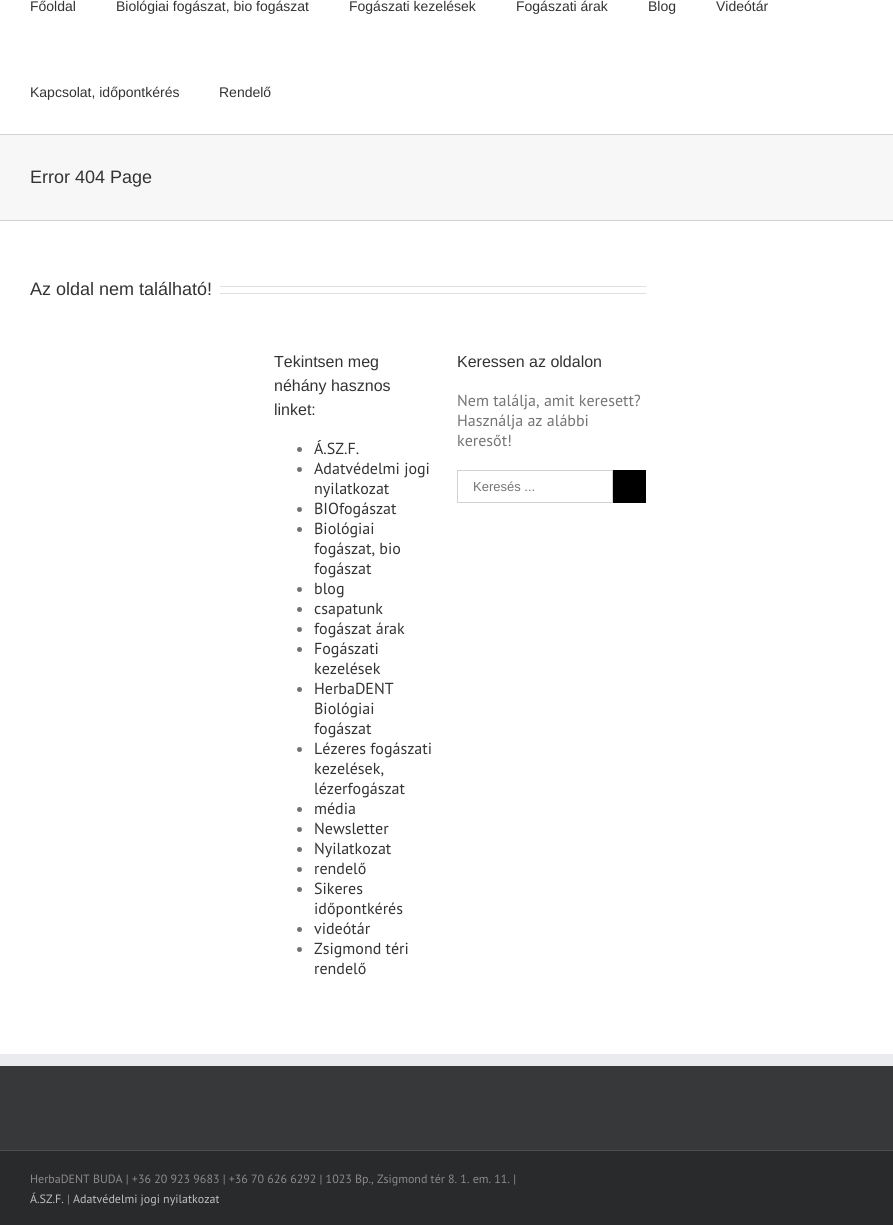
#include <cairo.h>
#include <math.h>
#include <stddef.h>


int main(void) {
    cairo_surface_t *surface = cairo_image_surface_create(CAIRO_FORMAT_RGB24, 893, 1225);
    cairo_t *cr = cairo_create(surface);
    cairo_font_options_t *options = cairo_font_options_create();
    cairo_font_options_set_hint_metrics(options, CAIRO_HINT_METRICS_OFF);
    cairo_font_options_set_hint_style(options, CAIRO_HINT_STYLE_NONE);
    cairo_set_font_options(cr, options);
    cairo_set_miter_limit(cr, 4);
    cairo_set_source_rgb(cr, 1, 1, 1);
    cairo_paint(cr);
    cairo_select_font_face(cr, "Liberation Sans", CAIRO_FONT_SLANT_NORMAL, CAIRO_FONT_WEIGHT_NORMAL);
    cairo_set_font_size(cr, 14);
    cairo_set_source_rgb(cr, 0.2, 0.2, 0.2);
    cairo_move_to(cr, 30, 11);
    cairo_show_text(cr, "Főoldal");
    cairo_move_to(cr, 116, 11);
    cairo_show_text(cr, "Biológiai fogászat, bio fogászat");
    cairo_move_to(cr, 349, 11);
    cairo_show_text(cr, "Fogászati kezelések");
    cairo_move_to(cr, 516, 11);
    cairo_show_text(cr, "Fogászati árak");
    cairo_move_to(cr, 648, 11);
    cairo_show_text(cr, "Blog");
    cairo_move_to(cr, 716, 11);
    cairo_show_text(cr, "Videótár");
    cairo_move_to(cr, 30, 97);
    cairo_show_text(cr, "Kapcsolat, időpontkérés");
    cairo_move_to(cr, 219, 97);
    cairo_show_text(cr, "Rendelő");
    cairo_set_source_rgb(cr, 0.965, 0.965, 0.965);
    cairo_rectangle(cr, 0, 135, 893, 85);
    cairo_fill(cr);
    cairo_set_source_rgb(cr, 0.824, 0.827, 0.831);
    cairo_rectangle(cr, 0, 134, 893, 1);
    cairo_fill(cr);
    cairo_rectangle(cr, 0, 220, 893, 1);
    cairo_fill(cr);
    cairo_set_font_size(cr, 18);
    cairo_set_source_rgb(cr, 0.2, 0.2, 0.2);
    cairo_move_to(cr, 30, 183);
    cairo_show_text(cr, "Error 404 Page");
    cairo_move_to(cr, 30, 295);
    cairo_show_text(cr, "Az oldal nem található!");
    cairo_set_source_rgb(cr, 0.878, 0.871, 0.871);
    cairo_rectangle(cr, 220, 286, 426, 1);
    cairo_fill(cr);
    cairo_rectangle(cr, 220, 293, 426, 1);
    cairo_fill(cr);
    cairo_set_font_size(cr, 16);
    cairo_set_source_rgb(cr, 0.2, 0.2, 0.2);
    cairo_move_to(cr, 274, 367);
    cairo_show_text(cr, "Tekintsen meg");
    cairo_move_to(cr, 274, 391);
    cairo_show_text(cr, "néhány hasznos");
    cairo_move_to(cr, 274, 415);
    cairo_show_text(cr, "linket:");
    cairo_set_source_rgb(cr, 0.455, 0.455, 0.455);
    cairo_new_path(cr);
    cairo_arc(cr, 299.5, 449.5, 2.5, 0, 2 * M_PI);
    cairo_fill(cr);
    cairo_select_font_face(cr, "PT Sans", CAIRO_FONT_SLANT_NORMAL, CAIRO_FONT_WEIGHT_NORMAL);
    cairo_set_source_rgb(cr, 0.2, 0.2, 0.2);
    cairo_move_to(cr, 314, 454);
    cairo_show_text(cr, "Á.SZ.F.");
    cairo_set_source_rgb(cr, 0.455, 0.455, 0.455);
    cairo_new_path(cr);
    cairo_arc(cr, 299.5, 469.5, 2.5, 0, 2 * M_PI);
    cairo_fill(cr);
    cairo_set_source_rgb(cr, 0.2, 0.2, 0.2);
    cairo_move_to(cr, 314, 474);
    cairo_show_text(cr, "Adatvédelmi jogi");
    cairo_move_to(cr, 314, 494);
    cairo_show_text(cr, "nyilatkozat");
    cairo_set_source_rgb(cr, 0.455, 0.455, 0.455);
    cairo_new_path(cr);
    cairo_arc(cr, 299.5, 509.5, 2.5, 0, 2 * M_PI);
    cairo_fill(cr);
    cairo_set_source_rgb(cr, 0.2, 0.2, 0.2);
    cairo_move_to(cr, 314, 514);
    cairo_show_text(cr, "BIOfogászat");
    cairo_set_source_rgb(cr, 0.455, 0.455, 0.455);
    cairo_new_path(cr);
    cairo_arc(cr, 299.5, 529.5, 2.5, 0, 2 * M_PI);
    cairo_fill(cr);
    cairo_set_source_rgb(cr, 0.2, 0.2, 0.2);
    cairo_move_to(cr, 314, 534);
    cairo_show_text(cr, "Biológiai");
    cairo_move_to(cr, 314, 554);
    cairo_show_text(cr, "fogászat, bio");
    cairo_move_to(cr, 314, 574);
    cairo_show_text(cr, "fogászat");
    cairo_set_source_rgb(cr, 0.455, 0.455, 0.455);
    cairo_new_path(cr);
    cairo_arc(cr, 299.5, 589.5, 2.5, 0, 2 * M_PI);
    cairo_fill(cr);
    cairo_set_source_rgb(cr, 0.2, 0.2, 0.2);
    cairo_move_to(cr, 314, 594);
    cairo_show_text(cr, "blog");
    cairo_set_source_rgb(cr, 0.455, 0.455, 0.455);
    cairo_new_path(cr);
    cairo_arc(cr, 299.5, 609.5, 2.5, 0, 2 * M_PI);
    cairo_fill(cr);
    cairo_set_source_rgb(cr, 0.2, 0.2, 0.2);
    cairo_move_to(cr, 314, 614);
    cairo_show_text(cr, "csapatunk");
    cairo_set_source_rgb(cr, 0.455, 0.455, 0.455);
    cairo_new_path(cr);
    cairo_arc(cr, 299.5, 629.5, 2.5, 0, 2 * M_PI);
    cairo_fill(cr);
    cairo_set_source_rgb(cr, 0.2, 0.2, 0.2);
    cairo_move_to(cr, 314, 634);
    cairo_show_text(cr, "fogászat árak");
    cairo_set_source_rgb(cr, 0.455, 0.455, 0.455);
    cairo_new_path(cr);
    cairo_arc(cr, 299.5, 649.5, 2.5, 0, 2 * M_PI);
    cairo_fill(cr);
    cairo_set_source_rgb(cr, 0.2, 0.2, 0.2);
    cairo_move_to(cr, 314, 654);
    cairo_show_text(cr, "Fogászati");
    cairo_move_to(cr, 314, 674);
    cairo_show_text(cr, "kezelések");
    cairo_set_source_rgb(cr, 0.455, 0.455, 0.455);
    cairo_new_path(cr);
    cairo_arc(cr, 299.5, 689.5, 2.5, 0, 2 * M_PI);
    cairo_fill(cr);
    cairo_set_source_rgb(cr, 0.2, 0.2, 0.2);
    cairo_move_to(cr, 314, 694);
    cairo_show_text(cr, "HerbaDENT");
    cairo_move_to(cr, 314, 714);
    cairo_show_text(cr, "Biológiai");
    cairo_move_to(cr, 314, 734);
    cairo_show_text(cr, "fogászat");
    cairo_set_source_rgb(cr, 0.455, 0.455, 0.455);
    cairo_new_path(cr);
    cairo_arc(cr, 299.5, 749.5, 2.5, 0, 2 * M_PI);
    cairo_fill(cr);
    cairo_set_source_rgb(cr, 0.2, 0.2, 0.2);
    cairo_move_to(cr, 314, 754);
    cairo_show_text(cr, "Lézeres fogászati");
    cairo_move_to(cr, 314, 774);
    cairo_show_text(cr, "kezelések,");
    cairo_move_to(cr, 314, 794);
    cairo_show_text(cr, "lézerfogászat");
    cairo_set_source_rgb(cr, 0.455, 0.455, 0.455);
    cairo_new_path(cr);
    cairo_arc(cr, 299.5, 809.5, 2.5, 0, 2 * M_PI);
    cairo_fill(cr);
    cairo_set_source_rgb(cr, 0.2, 0.2, 0.2);
    cairo_move_to(cr, 314, 814);
    cairo_show_text(cr, "média");
    cairo_set_source_rgb(cr, 0.455, 0.455, 0.455);
    cairo_new_path(cr);
    cairo_arc(cr, 299.5, 829.5, 2.5, 0, 2 * M_PI);
    cairo_fill(cr);
    cairo_set_source_rgb(cr, 0.2, 0.2, 0.2);
    cairo_move_to(cr, 314, 834);
    cairo_show_text(cr, "Newsletter");
    cairo_set_source_rgb(cr, 0.455, 0.455, 0.455);
    cairo_new_path(cr);
    cairo_arc(cr, 299.5, 849.5, 2.5, 0, 2 * M_PI);
    cairo_fill(cr);
    cairo_set_source_rgb(cr, 0.2, 0.2, 0.2);
    cairo_move_to(cr, 314, 854);
    cairo_show_text(cr, "Nyilatkozat");
    cairo_set_source_rgb(cr, 0.455, 0.455, 0.455);
    cairo_new_path(cr);
    cairo_arc(cr, 299.5, 869.5, 2.5, 0, 2 * M_PI);
    cairo_fill(cr);
    cairo_set_source_rgb(cr, 0.2, 0.2, 0.2);
    cairo_move_to(cr, 314, 874);
    cairo_show_text(cr, "rendelő");
    cairo_set_source_rgb(cr, 0.455, 0.455, 0.455);
    cairo_new_path(cr);
    cairo_arc(cr, 299.5, 889.5, 2.5, 0, 2 * M_PI);
    cairo_fill(cr);
    cairo_set_source_rgb(cr, 0.2, 0.2, 0.2);
    cairo_move_to(cr, 314, 894);
    cairo_show_text(cr, "Sikeres");
    cairo_move_to(cr, 314, 914);
    cairo_show_text(cr, "időpontkérés");
    cairo_set_source_rgb(cr, 0.455, 0.455, 0.455);
    cairo_new_path(cr);
    cairo_arc(cr, 299.5, 929.5, 2.5, 0, 2 * M_PI);
    cairo_fill(cr);
    cairo_set_source_rgb(cr, 0.2, 0.2, 0.2);
    cairo_move_to(cr, 314, 934);
    cairo_show_text(cr, "videótár");
    cairo_set_source_rgb(cr, 0.455, 0.455, 0.455);
    cairo_new_path(cr);
    cairo_arc(cr, 299.5, 949.5, 2.5, 0, 2 * M_PI);
    cairo_fill(cr);
    cairo_set_source_rgb(cr, 0.2, 0.2, 0.2);
    cairo_move_to(cr, 314, 954);
    cairo_show_text(cr, "Zsigmond téri");
    cairo_move_to(cr, 314, 974);
    cairo_show_text(cr, "rendelő");
    cairo_select_font_face(cr, "Liberation Sans", CAIRO_FONT_SLANT_NORMAL, CAIRO_FONT_WEIGHT_NORMAL);
    cairo_move_to(cr, 457, 367);
    cairo_show_text(cr, "Keressen az oldalon");
    cairo_select_font_face(cr, "PT Sans", CAIRO_FONT_SLANT_NORMAL, CAIRO_FONT_WEIGHT_NORMAL);
    cairo_set_source_rgb(cr, 0.455, 0.455, 0.455);
    cairo_move_to(cr, 457, 406);
    cairo_show_text(cr, "Nem találja, amit keresett?");
    cairo_move_to(cr, 457, 426);
    cairo_show_text(cr, "Használja az alábbi");
    cairo_move_to(cr, 457, 446);
    cairo_show_text(cr, "keresőt!");
    cairo_rectangle(cr, 457.5, 470.5, 155, 32);
    cairo_set_source_rgb(cr, 0.824, 0.824, 0.824);
    cairo_set_line_width(cr, 1);
    cairo_stroke(cr);
    cairo_select_font_face(cr, "Liberation Sans", CAIRO_FONT_SLANT_NORMAL, CAIRO_FONT_WEIGHT_NORMAL);
    cairo_set_font_size(cr, 13);
    cairo_set_source_rgb(cr, 0.455, 0.455, 0.455);
    cairo_move_to(cr, 473, 491);
    cairo_show_text(cr, "Keresés ...");
    cairo_set_source_rgb(cr, 0, 0, 0);
    cairo_rectangle(cr, 613, 470, 33, 33);
    cairo_fill(cr);
    cairo_set_source_rgb(cr, 0.212, 0.22, 0.224);
    cairo_rectangle(cr, 0, 1066, 893, 84);
    cairo_fill(cr);
    cairo_set_source_rgb(cr, 0.914, 0.918, 0.933);
    cairo_rectangle(cr, 0, 1054, 893, 12);
    cairo_fill(cr);
    cairo_set_source_rgb(cr, 0.157, 0.165, 0.169);
    cairo_rectangle(cr, 0, 1151, 893, 74);
    cairo_fill(cr);
    cairo_set_source_rgb(cr, 0.294, 0.298, 0.302);
    cairo_rectangle(cr, 0, 1150, 893, 1);
    cairo_fill(cr);
    cairo_select_font_face(cr, "PT Sans", CAIRO_FONT_SLANT_NORMAL, CAIRO_FONT_WEIGHT_NORMAL);
    cairo_set_font_size(cr, 12);
    cairo_set_source_rgb(cr, 0.549, 0.537, 0.537);
    cairo_move_to(cr, 30, 1183);
    cairo_show_text(cr, "HerbaDENT BUDA | +36 20 923 9683 | +36 70 626 6292 | 1023 Bp., Zsigmond tér 8. 1. em. 11. |");
    cairo_set_source_rgb(cr, 0.749, 0.749, 0.749);
    cairo_move_to(cr, 30, 1203);
    cairo_show_text(cr, "Á.SZ.F.");
    cairo_set_source_rgb(cr, 0.549, 0.537, 0.537);
    cairo_move_to(cr, 67, 1203);
    cairo_show_text(cr, "|");
    cairo_set_source_rgb(cr, 0.749, 0.749, 0.749);
    cairo_move_to(cr, 73, 1203);
    cairo_show_text(cr, "Adatvédelmi jogi nyilatkozat");
    cairo_surface_write_to_png(surface, "page.png");
    cairo_font_options_destroy(options);
    cairo_destroy(cr);
    cairo_surface_destroy(surface);
    return 0;
}
